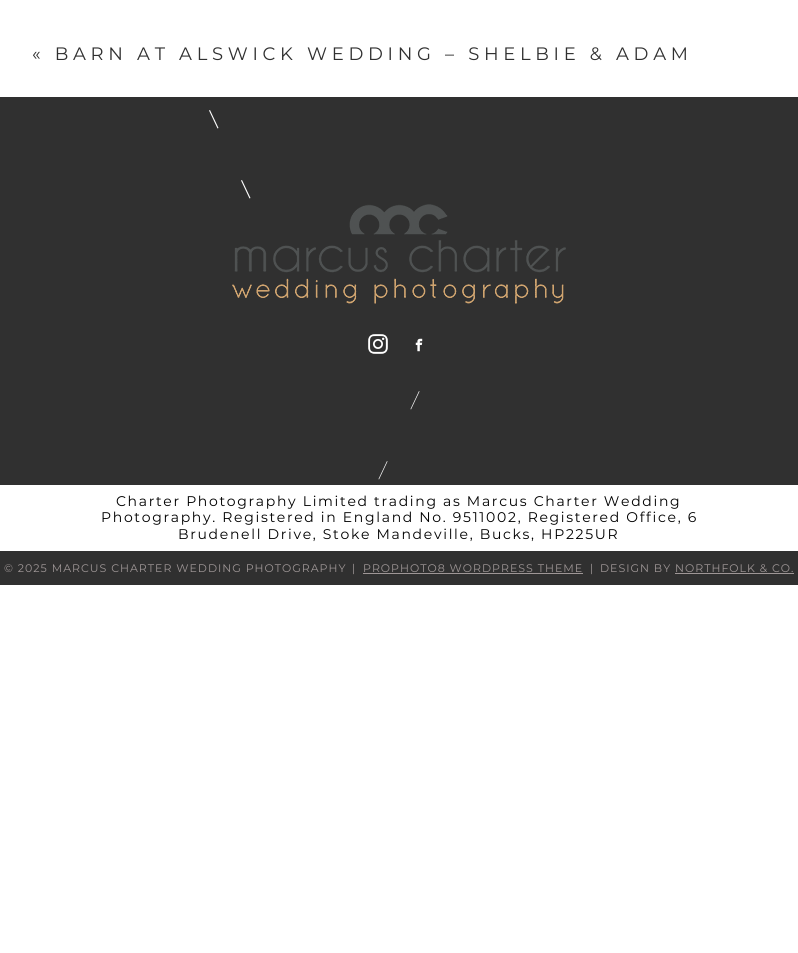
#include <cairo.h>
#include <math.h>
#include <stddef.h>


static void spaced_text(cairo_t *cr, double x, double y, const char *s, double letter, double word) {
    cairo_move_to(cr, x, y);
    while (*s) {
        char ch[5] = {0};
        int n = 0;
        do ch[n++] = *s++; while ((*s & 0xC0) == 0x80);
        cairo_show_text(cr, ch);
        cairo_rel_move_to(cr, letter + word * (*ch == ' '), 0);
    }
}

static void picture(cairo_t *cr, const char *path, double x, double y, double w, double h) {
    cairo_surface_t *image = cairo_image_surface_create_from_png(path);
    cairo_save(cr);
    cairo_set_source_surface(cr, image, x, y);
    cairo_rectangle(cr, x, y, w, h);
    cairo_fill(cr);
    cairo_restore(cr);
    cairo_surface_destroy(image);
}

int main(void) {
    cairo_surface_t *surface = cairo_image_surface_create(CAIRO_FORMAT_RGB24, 798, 953);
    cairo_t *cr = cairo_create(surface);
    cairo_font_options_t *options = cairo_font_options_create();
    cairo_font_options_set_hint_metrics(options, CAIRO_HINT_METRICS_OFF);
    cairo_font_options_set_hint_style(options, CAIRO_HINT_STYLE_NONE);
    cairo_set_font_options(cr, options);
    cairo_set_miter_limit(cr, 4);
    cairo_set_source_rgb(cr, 1, 1, 1);
    cairo_paint(cr);
    cairo_select_font_face(cr, "Montserrat Thin", CAIRO_FONT_SLANT_NORMAL, CAIRO_FONT_WEIGHT_NORMAL);
    cairo_set_font_size(cr, 18);
    cairo_set_source_rgb(cr, 0.188, 0.188, 0.188);
    spaced_text(cr, 32, 60, "« BARN AT ALSWICK WEDDING – SHELBIE & ADAM", 4.7, 0);
    cairo_rectangle(cr, 0, 97, 798, 388);
    cairo_fill(cr);
    cairo_set_source_rgb(cr, 1, 1, 1);
    cairo_new_path(cr);
    cairo_move_to(cr, 209, 110.5);
    cairo_line_to(cr, 210, 110);
    cairo_line_to(cr, 218.5, 128);
    cairo_line_to(cr, 217.5, 128.5);
    cairo_close_path(cr);
    cairo_fill(cr);
    cairo_new_path(cr);
    cairo_move_to(cr, 241, 180.5);
    cairo_line_to(cr, 242, 180);
    cairo_line_to(cr, 250.5, 198);
    cairo_line_to(cr, 249.5, 198.5);
    cairo_close_path(cr);
    cairo_fill(cr);
    picture(cr, "img1.png", 232, 204, 334, 100);
    picture(cr, "img2.png", 368, 334, 20, 20);
    picture(cr, "img3.png", 415, 338, 8, 14);
    cairo_new_path(cr);
    cairo_move_to(cr, 419, 391);
    cairo_line_to(cr, 419.5, 391.5);
    cairo_line_to(cr, 411, 409.5);
    cairo_line_to(cr, 410.5, 409);
    cairo_close_path(cr);
    cairo_fill(cr);
    cairo_new_path(cr);
    cairo_move_to(cr, 387, 461);
    cairo_line_to(cr, 387.5, 461.5);
    cairo_line_to(cr, 379, 479.5);
    cairo_line_to(cr, 378.5, 479);
    cairo_close_path(cr);
    cairo_fill(cr);
    cairo_set_font_size(cr, 14);
    cairo_set_source_rgb(cr, 0, 0, 0);
    spaced_text(cr, 116, 506, "Charter Photography Limited trading as Marcus Charter Wedding", 1.68, 0);
    spaced_text(cr, 101, 522, "Photography. Registered in England No. 9511002, Registered Office, 6", 1.68, 0);
    spaced_text(cr, 178, 539, "Brudenell Drive, Stoke Mandeville, Bucks, HP225UR", 1.68, 0);
    cairo_set_source_rgb(cr, 0.188, 0.188, 0.188);
    cairo_rectangle(cr, 0, 551, 798, 34);
    cairo_fill(cr);
    cairo_set_font_size(cr, 11);
    cairo_set_source_rgb(cr, 0.62, 0.588, 0.588);
    spaced_text(cr, 4, 572, "© 2025 MARCUS CHARTER WEDDING PHOTOGRAPHY", 1, 0);
    spaced_text(cr, 352, 572, "|", 1, 0);
    spaced_text(cr, 363, 572, "PROPHOTO8 WORDPRESS THEME", 1, 0);
    cairo_rectangle(cr, 363, 573, 220, 1);
    cairo_fill(cr);
    spaced_text(cr, 590, 572, "|", 1, 0);
    spaced_text(cr, 600, 572, "DESIGN BY NORTHFOLK & CO.", 1, 0);
    cairo_rectangle(cr, 675, 573, 119, 1);
    cairo_fill(cr);
    cairo_surface_write_to_png(surface, "page.png");
    cairo_font_options_destroy(options);
    cairo_destroy(cr);
    cairo_surface_destroy(surface);
    return 0;
}
